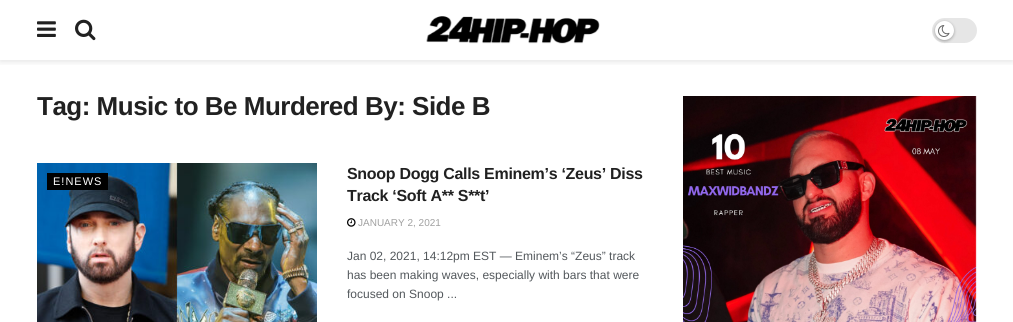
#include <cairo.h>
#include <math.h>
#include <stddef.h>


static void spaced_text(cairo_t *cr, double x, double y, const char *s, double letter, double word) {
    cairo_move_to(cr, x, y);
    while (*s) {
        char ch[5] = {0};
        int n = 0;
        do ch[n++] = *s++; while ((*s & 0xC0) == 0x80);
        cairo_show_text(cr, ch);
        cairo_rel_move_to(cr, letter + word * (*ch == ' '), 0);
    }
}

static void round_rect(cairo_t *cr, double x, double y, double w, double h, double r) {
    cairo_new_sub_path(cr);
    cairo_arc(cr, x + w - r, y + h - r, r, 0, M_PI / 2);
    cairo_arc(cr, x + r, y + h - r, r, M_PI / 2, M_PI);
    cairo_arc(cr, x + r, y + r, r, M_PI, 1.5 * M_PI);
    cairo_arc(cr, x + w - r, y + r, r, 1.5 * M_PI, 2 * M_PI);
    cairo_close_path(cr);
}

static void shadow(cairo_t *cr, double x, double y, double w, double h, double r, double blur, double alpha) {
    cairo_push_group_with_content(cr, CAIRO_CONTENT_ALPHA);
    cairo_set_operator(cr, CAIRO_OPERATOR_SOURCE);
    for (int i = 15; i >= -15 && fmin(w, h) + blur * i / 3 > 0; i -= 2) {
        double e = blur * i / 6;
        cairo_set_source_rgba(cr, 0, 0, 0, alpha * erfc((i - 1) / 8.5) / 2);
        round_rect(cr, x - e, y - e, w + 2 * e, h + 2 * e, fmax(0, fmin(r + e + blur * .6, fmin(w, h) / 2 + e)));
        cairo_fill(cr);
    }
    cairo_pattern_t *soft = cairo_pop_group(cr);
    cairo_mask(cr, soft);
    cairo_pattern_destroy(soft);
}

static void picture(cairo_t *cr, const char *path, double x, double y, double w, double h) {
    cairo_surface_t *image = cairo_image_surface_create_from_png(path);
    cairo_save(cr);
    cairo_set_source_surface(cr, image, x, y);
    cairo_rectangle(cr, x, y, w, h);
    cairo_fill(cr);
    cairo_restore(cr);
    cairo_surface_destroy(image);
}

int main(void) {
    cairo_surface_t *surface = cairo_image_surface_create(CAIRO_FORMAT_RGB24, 1013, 322);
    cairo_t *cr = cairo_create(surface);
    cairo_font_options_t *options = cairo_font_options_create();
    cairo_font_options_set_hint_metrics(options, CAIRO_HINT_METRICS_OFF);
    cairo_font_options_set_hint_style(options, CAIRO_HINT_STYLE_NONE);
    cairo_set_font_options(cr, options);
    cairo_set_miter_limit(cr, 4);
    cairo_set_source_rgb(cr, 1, 1, 1);
    cairo_paint(cr);
    cairo_save(cr);
    cairo_rectangle(cr, 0, 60, 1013, 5);
    cairo_clip(cr);
    cairo_set_source_rgb(cr, 0, 0, 0);
    shadow(cr, 0, 2, 1013, 60, 0, 3, 0.1);
    cairo_restore(cr);
    picture(cr, "img1.png", 37, 21, 19, 16);
    picture(cr, "img2.png", 75, 19, 21, 22);
    picture(cr, "img3.png", 426, 16, 174, 28);
    cairo_set_source_rgb(cr, 0.902, 0.902, 0.902);
    round_rect(cr, 932, 18, 45, 25, 12.5);
    cairo_fill(cr);
    cairo_set_source_rgb(cr, 0, 0, 0);
    shadow(cr, 935, 22, 19, 19, 9.5, 1.5, 0.3);
    cairo_set_source_rgb(cr, 1, 1, 1);
    cairo_arc(cr, 944.5, 30.5, 9.5, 0, 2 * M_PI);
    cairo_fill(cr);
    picture(cr, "img4.png", 938, 25, 12, 12);
    cairo_select_font_face(cr, "Liberation Sans", CAIRO_FONT_SLANT_NORMAL, CAIRO_FONT_WEIGHT_BOLD);
    cairo_set_font_size(cr, 26);
    cairo_set_source_rgb(cr, 0.129, 0.129, 0.129);
    spaced_text(cr, 37, 115, "Tag: Music to Be Murdered By: Side B", -0.5, 0);
    picture(cr, "img5.png", 37, 163, 280, 159);
    cairo_set_source_rgb(cr, 0, 0, 0);
    cairo_rectangle(cr, 47, 173, 61, 17);
    cairo_fill(cr);
    cairo_select_font_face(cr, "Liberation Sans", CAIRO_FONT_SLANT_NORMAL, CAIRO_FONT_WEIGHT_NORMAL);
    cairo_set_font_size(cr, 11);
    cairo_set_source_rgb(cr, 1, 1, 1);
    spaced_text(cr, 53, 185, "E!NEWS", 1, 0);
    cairo_select_font_face(cr, "Liberation Sans", CAIRO_FONT_SLANT_NORMAL, CAIRO_FONT_WEIGHT_BOLD);
    cairo_set_font_size(cr, 16);
    cairo_set_source_rgb(cr, 0.129, 0.129, 0.129);
    spaced_text(cr, 347, 179, "Snoop Dogg Calls Eminem’s ‘Zeus’ Diss", -0.3, 0);
    spaced_text(cr, 347, 201, "Track ‘Soft A** S**t’", -0.3, 0);
    picture(cr, "img6.png", 347, 218, 9, 9);
    cairo_select_font_face(cr, "Liberation Sans", CAIRO_FONT_SLANT_NORMAL, CAIRO_FONT_WEIGHT_NORMAL);
    cairo_set_font_size(cr, 10);
    cairo_set_source_rgb(cr, 0.627, 0.627, 0.627);
    cairo_move_to(cr, 358, 226);
    cairo_show_text(cr, "JANUARY 2, 2021");
    cairo_set_font_size(cr, 12);
    cairo_set_source_rgb(cr, 0.325, 0.345, 0.361);
    cairo_move_to(cr, 347, 260);
    cairo_show_text(cr, "Jan 02, 2021, 14:12pm EST — Eminem’s “Zeus” track");
    cairo_move_to(cr, 347, 279);
    cairo_show_text(cr, "has been making waves, especially with bars that were");
    cairo_move_to(cr, 347, 298);
    cairo_show_text(cr, "focused on Snoop ...");
    picture(cr, "img7.png", 683, 96, 294, 226);
    cairo_surface_write_to_png(surface, "page.png");
    cairo_font_options_destroy(options);
    cairo_destroy(cr);
    cairo_surface_destroy(surface);
    return 0;
}
